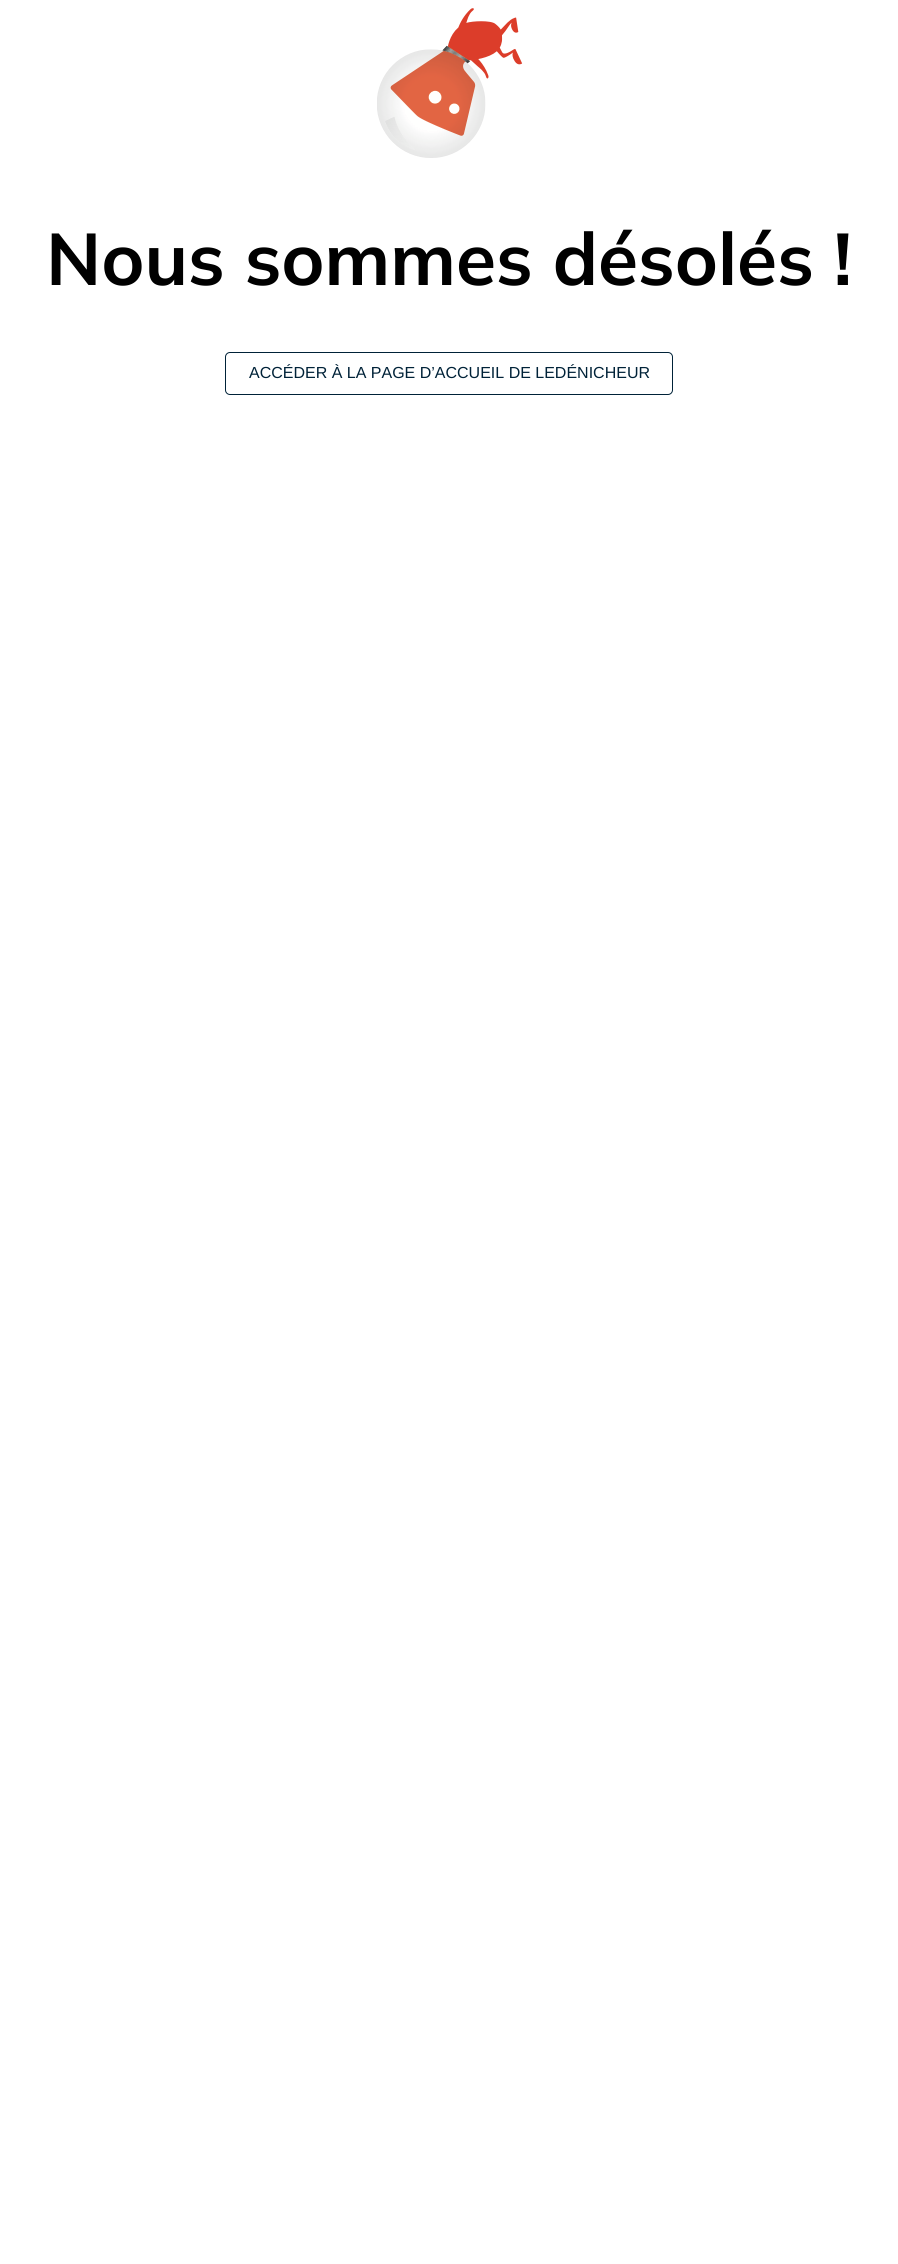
#include <cairo.h>
#include <math.h>
#include <stddef.h>


static void round_rect(cairo_t *cr, double x, double y, double w, double h, double r) {
    cairo_new_sub_path(cr);
    cairo_arc(cr, x + w - r, y + h - r, r, 0, M_PI / 2);
    cairo_arc(cr, x + r, y + h - r, r, M_PI / 2, M_PI);
    cairo_arc(cr, x + r, y + r, r, M_PI, 1.5 * M_PI);
    cairo_arc(cr, x + w - r, y + r, r, 1.5 * M_PI, 2 * M_PI);
    cairo_close_path(cr);
}

static void picture(cairo_t *cr, const char *path, double x, double y, double w, double h) {
    cairo_surface_t *image = cairo_image_surface_create_from_png(path);
    cairo_save(cr);
    cairo_set_source_surface(cr, image, x, y);
    cairo_rectangle(cr, x, y, w, h);
    cairo_fill(cr);
    cairo_restore(cr);
    cairo_surface_destroy(image);
}

int main(void) {
    cairo_surface_t *surface = cairo_image_surface_create(CAIRO_FORMAT_RGB24, 898, 2264);
    cairo_t *cr = cairo_create(surface);
    cairo_font_options_t *options = cairo_font_options_create();
    cairo_font_options_set_hint_metrics(options, CAIRO_HINT_METRICS_OFF);
    cairo_font_options_set_hint_style(options, CAIRO_HINT_STYLE_NONE);
    cairo_set_font_options(cr, options);
    cairo_set_miter_limit(cr, 4);
    cairo_set_source_rgb(cr, 1, 1, 1);
    cairo_paint(cr);
    picture(cr, "img1.png", 377, 8, 146, 150);
    cairo_select_font_face(cr, "Mulish", CAIRO_FONT_SLANT_NORMAL, CAIRO_FONT_WEIGHT_BOLD);
    cairo_set_font_size(cr, 73.1);
    cairo_set_source_rgb(cr, 0, 0, 0);
    cairo_move_to(cr, 46, 285);
    cairo_show_text(cr, "Nous sommes désolés !");
    round_rect(cr, 225.5, 352.5, 447, 42, 4.5);
    cairo_set_source_rgb(cr, 0, 0.133, 0.22);
    cairo_set_line_width(cr, 1);
    cairo_stroke(cr);
    cairo_select_font_face(cr, "Liberation Sans", CAIRO_FONT_SLANT_NORMAL, CAIRO_FONT_WEIGHT_NORMAL);
    cairo_set_font_size(cr, 16);
    cairo_move_to(cr, 249, 378);
    cairo_show_text(cr, "ACCÉDER À LA PAGE D’ACCUEIL DE LEDÉNICHEUR");
    cairo_surface_write_to_png(surface, "page.png");
    cairo_font_options_destroy(options);
    cairo_destroy(cr);
    cairo_surface_destroy(surface);
    return 0;
}
